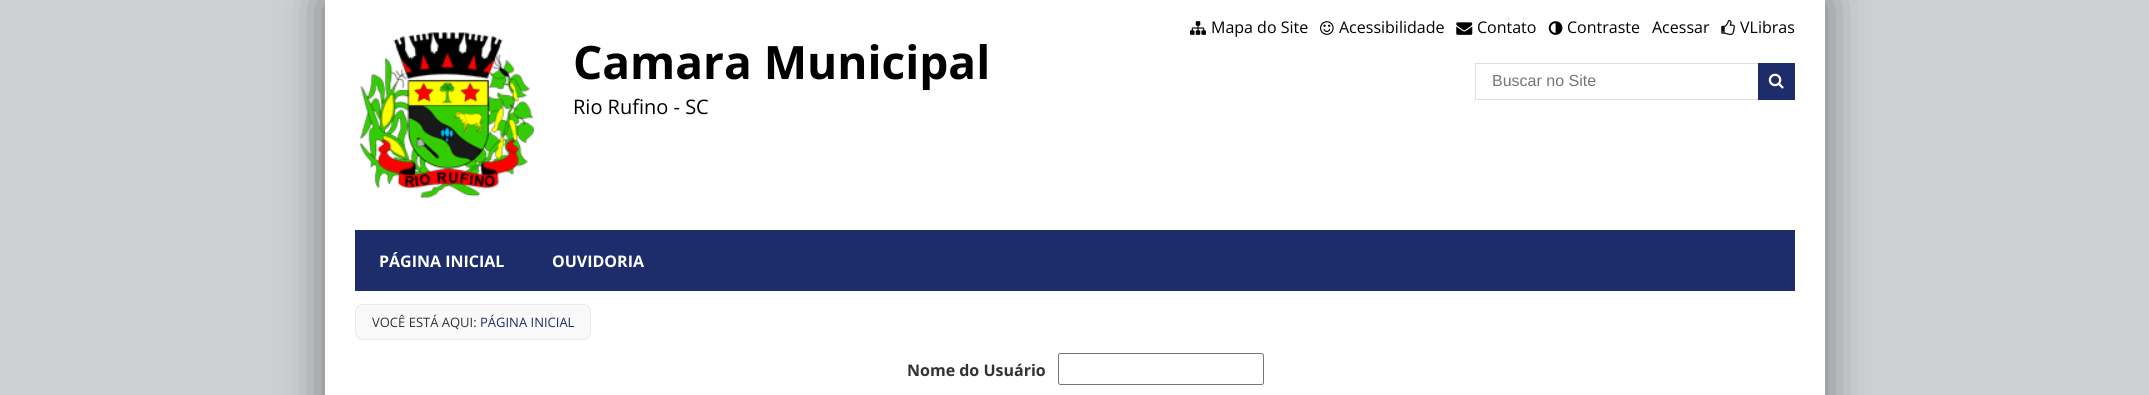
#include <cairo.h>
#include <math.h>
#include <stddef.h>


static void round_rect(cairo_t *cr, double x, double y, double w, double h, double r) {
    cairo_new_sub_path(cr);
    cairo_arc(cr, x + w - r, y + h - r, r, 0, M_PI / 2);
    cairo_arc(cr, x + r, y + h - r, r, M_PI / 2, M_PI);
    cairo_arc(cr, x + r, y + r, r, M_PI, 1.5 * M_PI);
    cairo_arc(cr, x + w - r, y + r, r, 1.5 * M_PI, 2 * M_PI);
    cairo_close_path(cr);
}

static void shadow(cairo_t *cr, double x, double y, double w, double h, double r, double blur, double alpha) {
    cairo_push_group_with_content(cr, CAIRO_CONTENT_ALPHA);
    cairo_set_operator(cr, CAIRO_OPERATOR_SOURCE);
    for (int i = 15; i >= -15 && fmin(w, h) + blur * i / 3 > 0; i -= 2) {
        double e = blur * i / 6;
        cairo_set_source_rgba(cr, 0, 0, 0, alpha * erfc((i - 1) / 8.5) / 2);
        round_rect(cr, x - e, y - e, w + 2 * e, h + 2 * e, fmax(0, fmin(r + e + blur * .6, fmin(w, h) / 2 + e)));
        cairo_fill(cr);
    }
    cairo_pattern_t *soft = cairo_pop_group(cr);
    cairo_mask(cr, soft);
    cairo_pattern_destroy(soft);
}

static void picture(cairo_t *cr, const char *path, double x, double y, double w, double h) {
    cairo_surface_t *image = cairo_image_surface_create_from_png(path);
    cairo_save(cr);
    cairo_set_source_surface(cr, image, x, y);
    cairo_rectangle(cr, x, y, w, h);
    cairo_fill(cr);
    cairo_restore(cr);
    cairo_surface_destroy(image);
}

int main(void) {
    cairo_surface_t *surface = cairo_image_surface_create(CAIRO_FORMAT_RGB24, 2149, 395);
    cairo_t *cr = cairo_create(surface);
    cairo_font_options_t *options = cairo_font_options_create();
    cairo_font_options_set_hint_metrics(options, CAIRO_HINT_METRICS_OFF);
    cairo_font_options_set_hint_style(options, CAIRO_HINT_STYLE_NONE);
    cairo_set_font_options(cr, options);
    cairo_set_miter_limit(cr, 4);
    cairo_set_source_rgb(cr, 0.812, 0.816, 0.827);
    cairo_paint(cr);
    cairo_set_source_rgb(cr, 0, 0, 0);
    shadow(cr, 325, 0, 1500, 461, 0, 22, 0.45);
    cairo_set_source_rgb(cr, 1, 1, 1);
    cairo_rectangle(cr, 325, 0, 1500, 395);
    cairo_fill(cr);
    picture(cr, "img1.png", 1190, 21, 16, 14);
    cairo_select_font_face(cr, "Open Sans", CAIRO_FONT_SLANT_NORMAL, CAIRO_FONT_WEIGHT_NORMAL);
    cairo_set_font_size(cr, 16);
    cairo_set_source_rgb(cr, 0, 0, 0);
    cairo_move_to(cr, 1211, 33);
    cairo_show_text(cr, "Mapa do Site");
    picture(cr, "img2.png", 1320, 21, 14, 14);
    cairo_move_to(cr, 1339, 33);
    cairo_show_text(cr, "Acessibilidade");
    picture(cr, "img3.png", 1456, 22, 17, 13);
    cairo_move_to(cr, 1477, 33);
    cairo_show_text(cr, "Contato");
    picture(cr, "img4.png", 1548, 21, 15, 14);
    cairo_move_to(cr, 1567, 33);
    cairo_show_text(cr, "Contraste");
    cairo_move_to(cr, 1652, 33);
    cairo_show_text(cr, "Acessar");
    picture(cr, "img5.png", 1721, 20, 14, 15);
    cairo_move_to(cr, 1740, 33);
    cairo_show_text(cr, "VLibras");
    picture(cr, "img6.png", 359, 32, 175, 166);
    cairo_select_font_face(cr, "Open Sans", CAIRO_FONT_SLANT_NORMAL, CAIRO_FONT_WEIGHT_BOLD);
    cairo_set_font_size(cr, 46);
    cairo_move_to(cr, 573, 79);
    cairo_show_text(cr, "Camara Municipal");
    cairo_select_font_face(cr, "Open Sans", CAIRO_FONT_SLANT_NORMAL, CAIRO_FONT_WEIGHT_NORMAL);
    cairo_set_font_size(cr, 20);
    cairo_move_to(cr, 573, 114);
    cairo_show_text(cr, "Rio Rufino - SC");
    cairo_rectangle(cr, 1475.5, 63.5, 319, 36);
    cairo_set_source_rgb(cr, 0.867, 0.867, 0.867);
    cairo_set_line_width(cr, 1);
    cairo_stroke(cr);
    cairo_select_font_face(cr, "Liberation Sans", CAIRO_FONT_SLANT_NORMAL, CAIRO_FONT_WEIGHT_NORMAL);
    cairo_set_font_size(cr, 16);
    cairo_set_source_rgb(cr, 0.459, 0.459, 0.459);
    cairo_move_to(cr, 1492, 86);
    cairo_show_text(cr, "Buscar no Site");
    cairo_set_source_rgb(cr, 0.114, 0.176, 0.42);
    cairo_rectangle(cr, 1758, 63, 37, 37);
    cairo_fill(cr);
    picture(cr, "img7.png", 1768, 73, 16, 16);
    cairo_rectangle(cr, 355, 230, 1440, 61);
    cairo_fill(cr);
    cairo_select_font_face(cr, "Open Sans", CAIRO_FONT_SLANT_NORMAL, CAIRO_FONT_WEIGHT_BOLD);
    cairo_set_source_rgb(cr, 1, 1, 1);
    cairo_move_to(cr, 379, 267);
    cairo_show_text(cr, "PÁGINA INICIAL");
    cairo_move_to(cr, 552, 267);
    cairo_show_text(cr, "OUVIDORIA");
    cairo_set_source_rgb(cr, 0.976, 0.976, 0.976);
    round_rect(cr, 355.5, 304.5, 235, 35, 7.5);
    cairo_fill_preserve(cr);
    cairo_set_source_rgb(cr, 0.914, 0.914, 0.914);
    cairo_stroke(cr);
    cairo_select_font_face(cr, "Open Sans", CAIRO_FONT_SLANT_NORMAL, CAIRO_FONT_WEIGHT_NORMAL);
    cairo_set_font_size(cr, 13);
    cairo_set_source_rgb(cr, 0.2, 0.2, 0.2);
    cairo_move_to(cr, 372, 327);
    cairo_show_text(cr, "VOCÊ ESTÁ AQUI:");
    cairo_set_source_rgb(cr, 0.114, 0.176, 0.42);
    cairo_move_to(cr, 480, 327);
    cairo_show_text(cr, "PÁGINA INICIAL");
    cairo_select_font_face(cr, "Open Sans", CAIRO_FONT_SLANT_NORMAL, CAIRO_FONT_WEIGHT_BOLD);
    cairo_set_font_size(cr, 16);
    cairo_set_source_rgb(cr, 0.2, 0.2, 0.2);
    cairo_move_to(cr, 907, 376);
    cairo_show_text(cr, "Nome do Usuário");
    round_rect(cr, 1058.5, 353.5, 205, 31, 2);
    cairo_set_source_rgb(cr, 0.463, 0.463, 0.463);
    cairo_stroke(cr);
    cairo_surface_write_to_png(surface, "page.png");
    cairo_font_options_destroy(options);
    cairo_destroy(cr);
    cairo_surface_destroy(surface);
    return 0;
}
